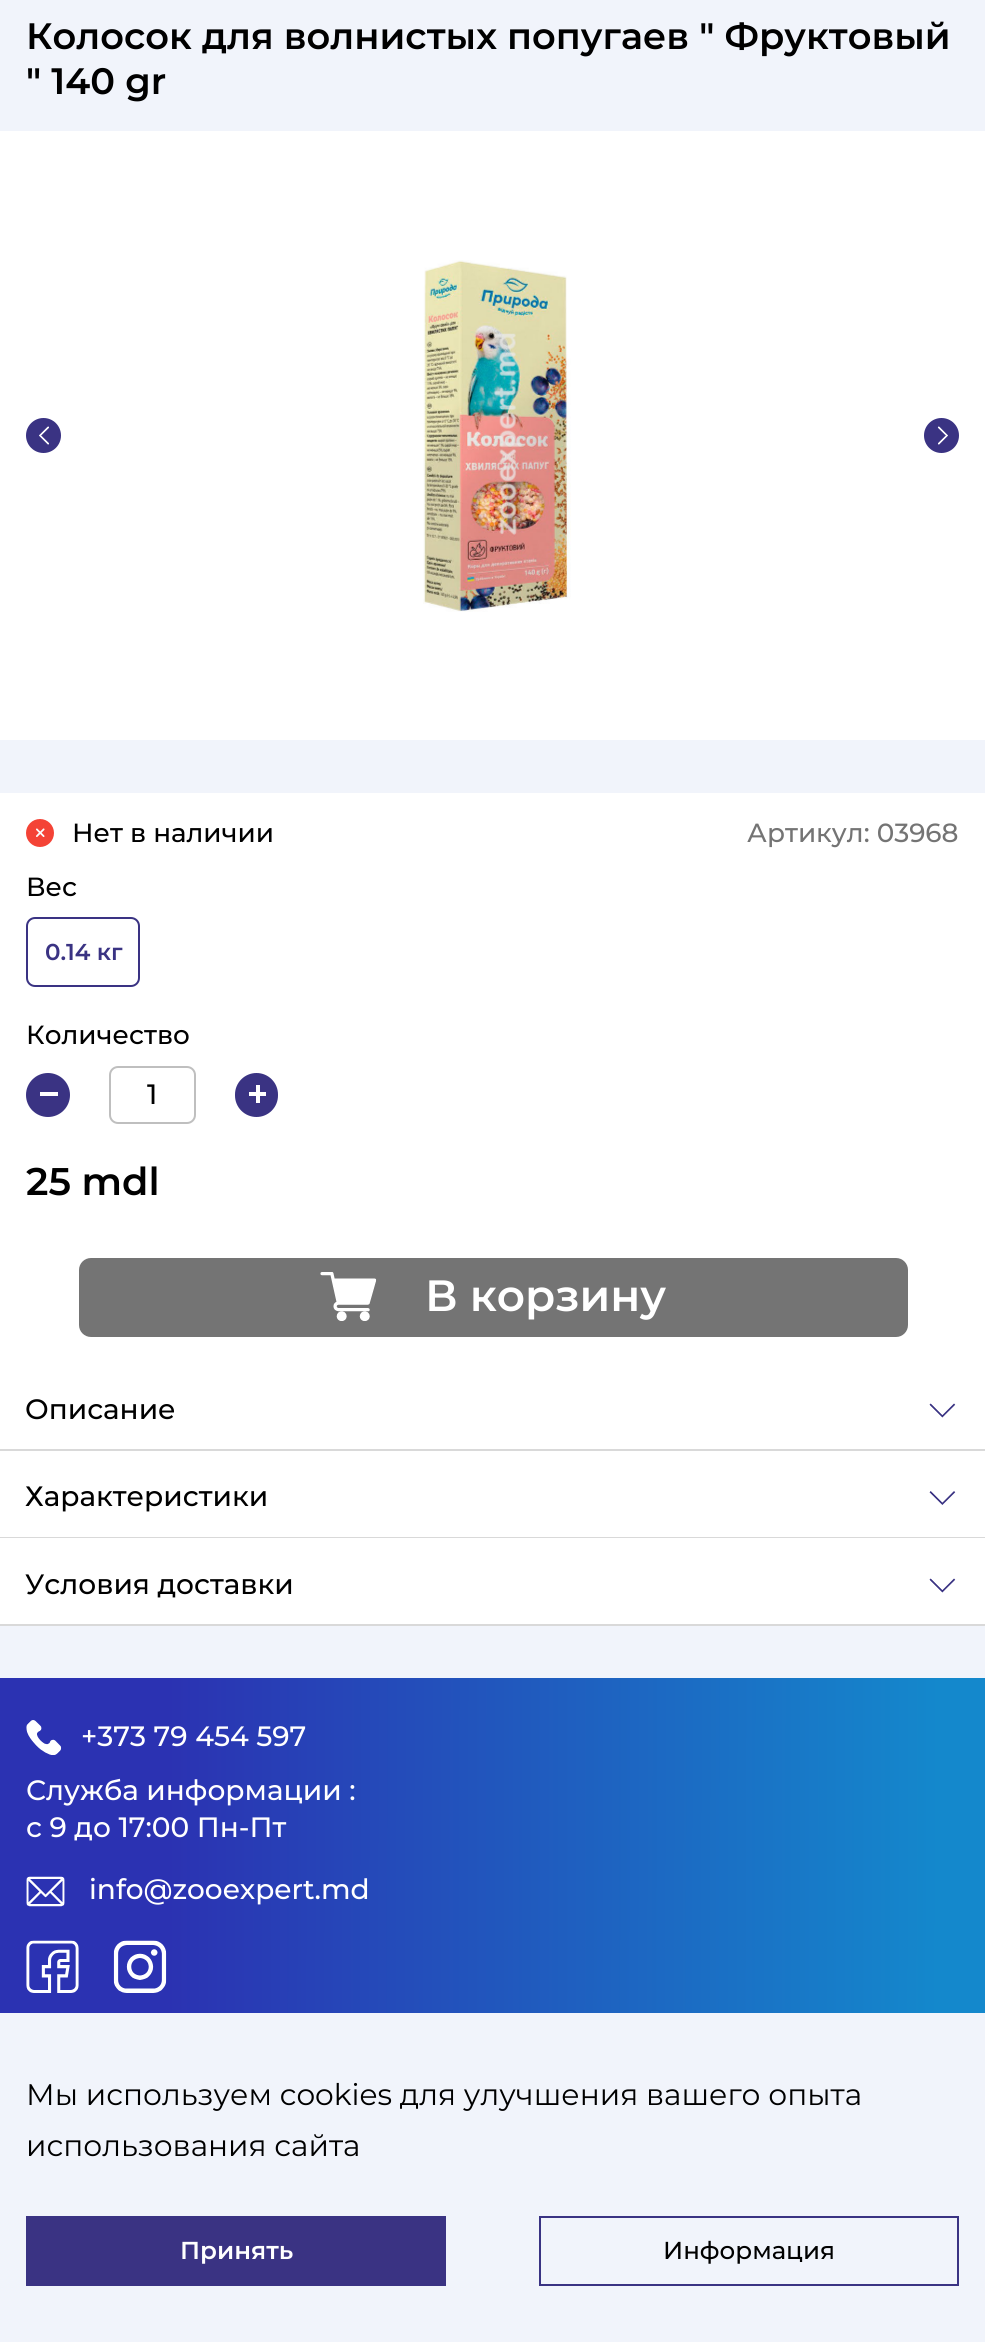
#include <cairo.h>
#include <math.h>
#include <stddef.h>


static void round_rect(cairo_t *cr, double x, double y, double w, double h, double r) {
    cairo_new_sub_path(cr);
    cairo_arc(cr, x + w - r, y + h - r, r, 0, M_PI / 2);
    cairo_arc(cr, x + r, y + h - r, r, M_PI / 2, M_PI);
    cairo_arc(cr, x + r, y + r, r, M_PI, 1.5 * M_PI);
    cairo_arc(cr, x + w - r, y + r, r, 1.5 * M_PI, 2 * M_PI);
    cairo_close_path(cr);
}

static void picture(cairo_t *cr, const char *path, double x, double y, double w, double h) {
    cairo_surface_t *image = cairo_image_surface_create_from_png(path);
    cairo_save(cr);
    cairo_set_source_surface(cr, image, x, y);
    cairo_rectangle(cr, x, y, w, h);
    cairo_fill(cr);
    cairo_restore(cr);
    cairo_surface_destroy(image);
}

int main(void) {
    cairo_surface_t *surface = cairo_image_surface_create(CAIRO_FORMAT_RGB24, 985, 2342);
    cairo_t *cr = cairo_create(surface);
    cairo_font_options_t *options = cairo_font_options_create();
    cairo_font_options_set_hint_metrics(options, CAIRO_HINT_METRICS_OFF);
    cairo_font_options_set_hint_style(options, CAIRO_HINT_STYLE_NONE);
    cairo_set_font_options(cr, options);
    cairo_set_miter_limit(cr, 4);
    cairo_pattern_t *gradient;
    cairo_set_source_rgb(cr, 0.945, 0.957, 0.984);
    cairo_paint(cr);
    cairo_select_font_face(cr, "Montserrat SemiBold", CAIRO_FONT_SLANT_NORMAL, CAIRO_FONT_WEIGHT_NORMAL);
    cairo_set_font_size(cr, 36.75);
    cairo_set_source_rgb(cr, 0, 0, 0);
    cairo_move_to(cr, 26, 49);
    cairo_show_text(cr, "Колосок для волнистых попугаев \" Фруктовый");
    cairo_move_to(cr, 26, 94);
    cairo_show_text(cr, "\" 140 gr");
    cairo_set_source_rgb(cr, 1, 1, 1);
    cairo_rectangle(cr, 0, 131, 985, 609);
    cairo_fill(cr);
    cairo_set_source_rgb(cr, 0.227, 0.2, 0.514);
    cairo_arc(cr, 43.5, 435.5, 17.5, 0, 2 * M_PI);
    cairo_fill(cr);
    picture(cr, "img1.png", 39, 426, 10, 19);
    picture(cr, "img2.png", 423, 260, 148, 352);
    cairo_arc(cr, 941.5, 435.5, 17.5, 0, 2 * M_PI);
    cairo_fill(cr);
    picture(cr, "img3.png", 937, 426, 11, 19);
    cairo_set_source_rgb(cr, 1, 1, 1);
    cairo_rectangle(cr, 0, 793, 985, 439);
    cairo_fill(cr);
    cairo_set_source_rgb(cr, 0.957, 0.263, 0.212);
    cairo_arc(cr, 40, 833, 14, 0, 2 * M_PI);
    cairo_fill(cr);
    picture(cr, "img4.png", 36, 828, 9, 9);
    cairo_select_font_face(cr, "Montserrat Medium", CAIRO_FONT_SLANT_NORMAL, CAIRO_FONT_WEIGHT_NORMAL);
    cairo_set_font_size(cr, 26.25);
    cairo_set_source_rgb(cr, 0, 0, 0);
    cairo_move_to(cr, 72, 842);
    cairo_show_text(cr, "Нет в наличии");
    cairo_set_source_rgb(cr, 0.455, 0.455, 0.455);
    cairo_move_to(cr, 747, 842);
    cairo_show_text(cr, "Артикул: 03968");
    cairo_set_source_rgb(cr, 0, 0, 0);
    cairo_move_to(cr, 26, 896);
    cairo_show_text(cr, "Вес");
    round_rect(cr, 27, 918, 112, 68, 8);
    cairo_set_source_rgb(cr, 0.227, 0.2, 0.514);
    cairo_stroke(cr);
    cairo_select_font_face(cr, "Montserrat SemiBold", CAIRO_FONT_SLANT_NORMAL, CAIRO_FONT_WEIGHT_NORMAL);
    cairo_set_font_size(cr, 23);
    cairo_move_to(cr, 45, 960);
    cairo_show_text(cr, "0.14 кг");
    cairo_select_font_face(cr, "Montserrat Medium", CAIRO_FONT_SLANT_NORMAL, CAIRO_FONT_WEIGHT_NORMAL);
    cairo_set_font_size(cr, 26.25);
    cairo_set_source_rgb(cr, 0, 0, 0);
    cairo_move_to(cr, 26, 1044);
    cairo_show_text(cr, "Количество");
    cairo_set_source_rgb(cr, 0.227, 0.2, 0.514);
    cairo_new_path(cr);
    cairo_arc(cr, 48, 1095, 22, 0, 2 * M_PI);
    cairo_fill(cr);
    cairo_set_source_rgb(cr, 1, 1, 1);
    cairo_rectangle(cr, 40, 1092, 18, 4);
    cairo_fill(cr);
    round_rect(cr, 110, 1067, 85, 56, 8);
    cairo_set_source_rgb(cr, 0.749, 0.749, 0.749);
    cairo_stroke(cr);
    cairo_set_font_size(cr, 28);
    cairo_set_source_rgb(cr, 0, 0, 0);
    cairo_move_to(cr, 147, 1104);
    cairo_show_text(cr, "1");
    cairo_set_source_rgb(cr, 0.227, 0.2, 0.514);
    round_rect(cr, 235, 1073, 43, 44, 21.5);
    cairo_fill(cr);
    cairo_set_source_rgb(cr, 1, 1, 1);
    cairo_rectangle(cr, 249, 1092, 17, 4);
    cairo_fill(cr);
    cairo_rectangle(cr, 256, 1085, 4, 18);
    cairo_fill(cr);
    cairo_select_font_face(cr, "Montserrat SemiBold", CAIRO_FONT_SLANT_NORMAL, CAIRO_FONT_WEIGHT_NORMAL);
    cairo_set_font_size(cr, 38.5);
    cairo_set_source_rgb(cr, 0, 0, 0);
    cairo_move_to(cr, 26, 1195);
    cairo_show_text(cr, "25 mdl");
    cairo_set_source_rgb(cr, 1, 1, 1);
    cairo_rectangle(cr, 0, 1232, 985, 217);
    cairo_fill(cr);
    cairo_set_source_rgb(cr, 0.455, 0.455, 0.455);
    round_rect(cr, 80, 1259, 827, 77, 11);
    cairo_fill_preserve(cr);
    cairo_stroke(cr);
    picture(cr, "img5.png", 320, 1272, 57, 49);
    cairo_set_font_size(cr, 43.75);
    cairo_set_source_rgb(cr, 1, 1, 1);
    cairo_move_to(cr, 425, 1311);
    cairo_show_text(cr, "В корзину");
    cairo_set_source_rgb(cr, 0.851, 0.851, 0.851);
    cairo_rectangle(cr, 0, 1449, 985, 2);
    cairo_fill(cr);
    cairo_select_font_face(cr, "Montserrat Medium", CAIRO_FONT_SLANT_NORMAL, CAIRO_FONT_WEIGHT_NORMAL);
    cairo_set_font_size(cr, 28);
    cairo_set_source_rgb(cr, 0, 0, 0);
    cairo_move_to(cr, 25, 1419);
    cairo_show_text(cr, "Описание");
    picture(cr, "img6.png", 929, 1403, 27, 15);
    cairo_set_source_rgb(cr, 1, 1, 1);
    cairo_rectangle(cr, 0, 1451, 985, 86);
    cairo_fill(cr);
    cairo_set_source_rgb(cr, 0.851, 0.851, 0.851);
    cairo_rectangle(cr, 0, 1537, 985, 1);
    cairo_fill(cr);
    cairo_set_source_rgb(cr, 0, 0, 0);
    cairo_move_to(cr, 25, 1506);
    cairo_show_text(cr, "Характеристики");
    picture(cr, "img7.png", 929, 1491, 27, 14);
    cairo_set_source_rgb(cr, 1, 1, 1);
    cairo_rectangle(cr, 0, 1538, 985, 86);
    cairo_fill(cr);
    cairo_set_source_rgb(cr, 0.851, 0.851, 0.851);
    cairo_rectangle(cr, 0, 1624, 985, 2);
    cairo_fill(cr);
    cairo_set_source_rgb(cr, 0, 0, 0);
    cairo_move_to(cr, 25, 1594);
    cairo_show_text(cr, "Условия доставки");
    picture(cr, "img6.png", 929, 1578, 27, 15);
    gradient = cairo_pattern_create_linear(-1.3, 2233, 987, 2235);
    cairo_pattern_add_color_stop_rgba(gradient, 0.17, 0.169, 0.196, 0.698, 1);
    cairo_pattern_add_color_stop_rgba(gradient, 0.95, 0.078, 0.533, 0.8, 1);
    cairo_set_source(cr, gradient);
    cairo_pattern_destroy(gradient);
    cairo_rectangle(cr, 0, 1678, 985, 335);
    cairo_fill(cr);
    picture(cr, "img8.png", 26, 1720, 36, 35);
    cairo_set_source_rgb(cr, 1, 1, 1);
    cairo_move_to(cr, 81, 1746);
    cairo_show_text(cr, "+373 79 454 597");
    cairo_move_to(cr, 26, 1800);
    cairo_show_text(cr, "Служба информации :");
    cairo_move_to(cr, 26, 1837);
    cairo_show_text(cr, "с 9 до 17:00 Пн-Пт");
    picture(cr, "img9.png", 26, 1876, 39, 31);
    cairo_move_to(cr, 89, 1899);
    cairo_show_text(cr, "info@zooexpert.md");
    picture(cr, "img10.png", 26, 1940, 53, 53);
    picture(cr, "img11.png", 113, 1940, 54, 53);
    cairo_select_font_face(cr, "Montserrat", CAIRO_FONT_SLANT_NORMAL, CAIRO_FONT_WEIGHT_NORMAL);
    cairo_set_font_size(cr, 29.75);
    cairo_set_source_rgb(cr, 0, 0, 0);
    cairo_move_to(cr, 26, 2105);
    cairo_show_text(cr, "Мы используем cookies для улучшения вашего опыта");
    cairo_move_to(cr, 26, 2156);
    cairo_show_text(cr, "использования сайта");
    cairo_set_source_rgb(cr, 0.227, 0.2, 0.514);
    cairo_rectangle(cr, 26, 2216, 420, 70);
    cairo_fill(cr);
    cairo_select_font_face(cr, "Montserrat SemiBold", CAIRO_FONT_SLANT_NORMAL, CAIRO_FONT_WEIGHT_NORMAL);
    cairo_set_font_size(cr, 24.5);
    cairo_set_source_rgb(cr, 1, 1, 1);
    cairo_move_to(cr, 180, 2259);
    cairo_show_text(cr, "Принять");
    cairo_rectangle(cr, 540, 2217, 418, 68);
    cairo_set_source_rgb(cr, 0.227, 0.2, 0.514);
    cairo_stroke(cr);
    cairo_select_font_face(cr, "Montserrat Medium", CAIRO_FONT_SLANT_NORMAL, CAIRO_FONT_WEIGHT_NORMAL);
    cairo_set_source_rgb(cr, 0, 0, 0);
    cairo_move_to(cr, 663, 2259);
    cairo_show_text(cr, "Информация");
    cairo_surface_write_to_png(surface, "page.png");
    cairo_font_options_destroy(options);
    cairo_destroy(cr);
    cairo_surface_destroy(surface);
    return 0;
}
